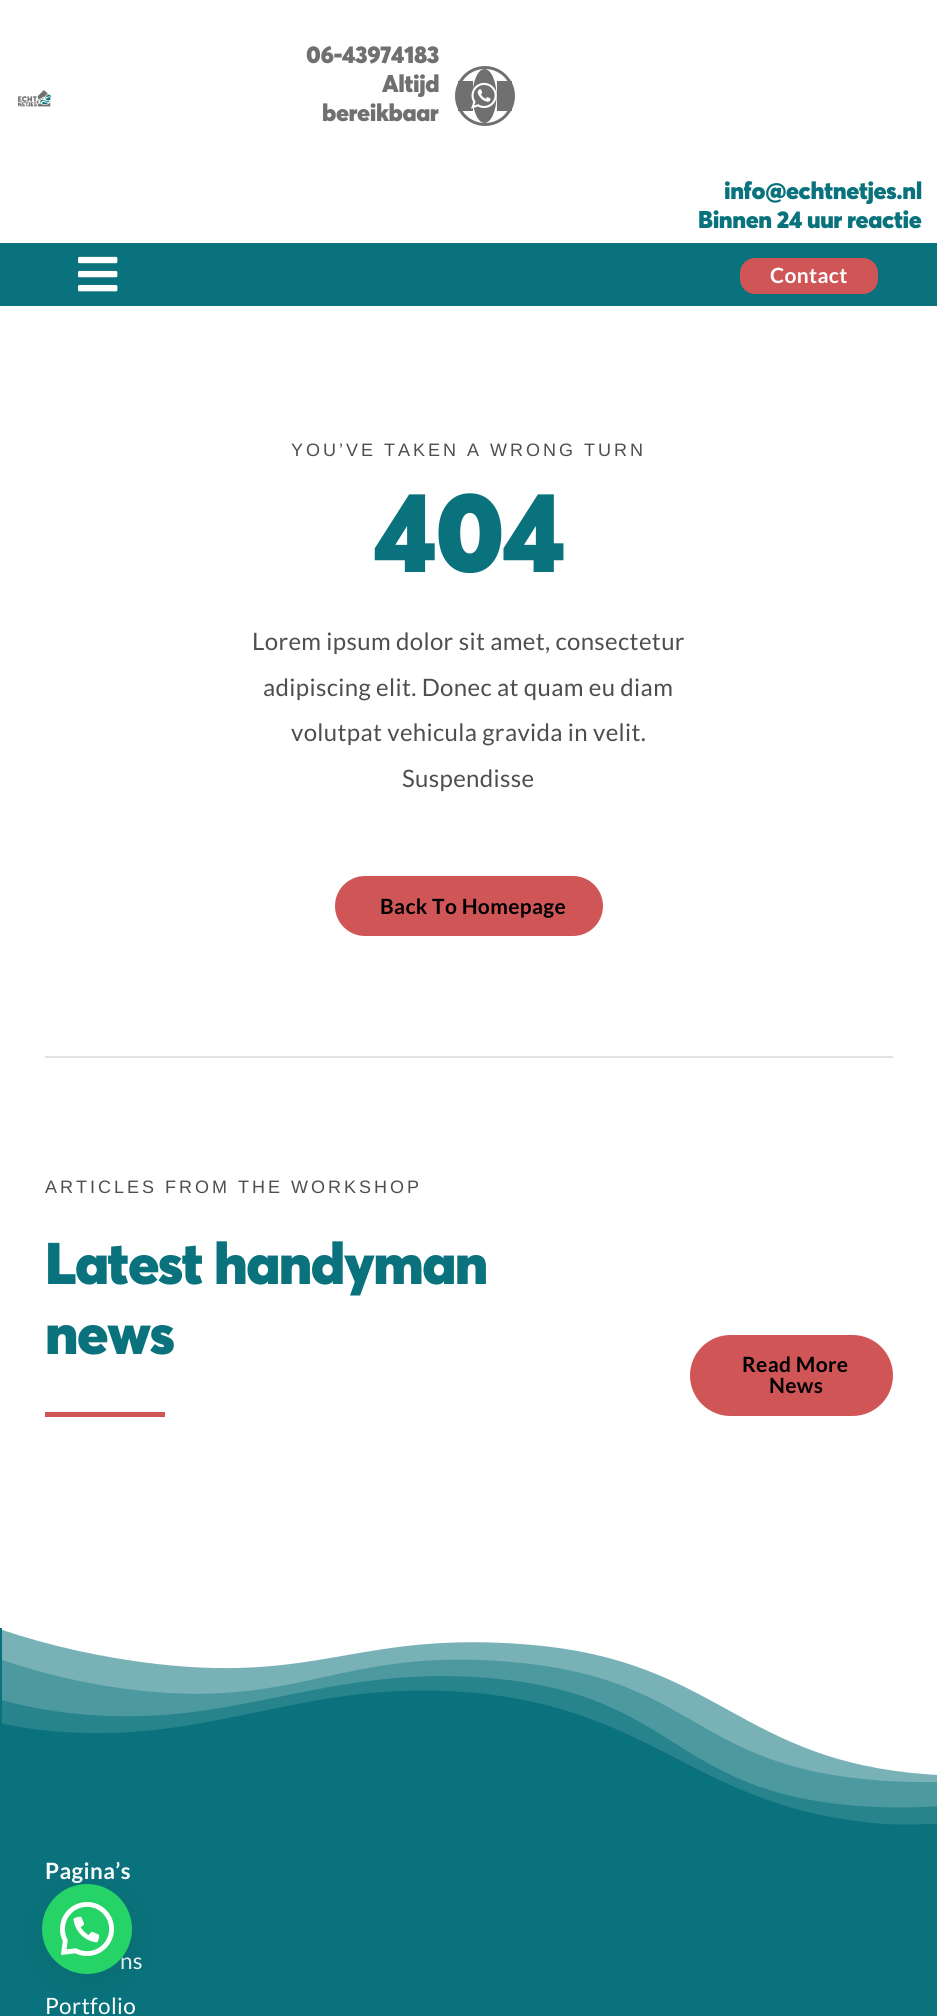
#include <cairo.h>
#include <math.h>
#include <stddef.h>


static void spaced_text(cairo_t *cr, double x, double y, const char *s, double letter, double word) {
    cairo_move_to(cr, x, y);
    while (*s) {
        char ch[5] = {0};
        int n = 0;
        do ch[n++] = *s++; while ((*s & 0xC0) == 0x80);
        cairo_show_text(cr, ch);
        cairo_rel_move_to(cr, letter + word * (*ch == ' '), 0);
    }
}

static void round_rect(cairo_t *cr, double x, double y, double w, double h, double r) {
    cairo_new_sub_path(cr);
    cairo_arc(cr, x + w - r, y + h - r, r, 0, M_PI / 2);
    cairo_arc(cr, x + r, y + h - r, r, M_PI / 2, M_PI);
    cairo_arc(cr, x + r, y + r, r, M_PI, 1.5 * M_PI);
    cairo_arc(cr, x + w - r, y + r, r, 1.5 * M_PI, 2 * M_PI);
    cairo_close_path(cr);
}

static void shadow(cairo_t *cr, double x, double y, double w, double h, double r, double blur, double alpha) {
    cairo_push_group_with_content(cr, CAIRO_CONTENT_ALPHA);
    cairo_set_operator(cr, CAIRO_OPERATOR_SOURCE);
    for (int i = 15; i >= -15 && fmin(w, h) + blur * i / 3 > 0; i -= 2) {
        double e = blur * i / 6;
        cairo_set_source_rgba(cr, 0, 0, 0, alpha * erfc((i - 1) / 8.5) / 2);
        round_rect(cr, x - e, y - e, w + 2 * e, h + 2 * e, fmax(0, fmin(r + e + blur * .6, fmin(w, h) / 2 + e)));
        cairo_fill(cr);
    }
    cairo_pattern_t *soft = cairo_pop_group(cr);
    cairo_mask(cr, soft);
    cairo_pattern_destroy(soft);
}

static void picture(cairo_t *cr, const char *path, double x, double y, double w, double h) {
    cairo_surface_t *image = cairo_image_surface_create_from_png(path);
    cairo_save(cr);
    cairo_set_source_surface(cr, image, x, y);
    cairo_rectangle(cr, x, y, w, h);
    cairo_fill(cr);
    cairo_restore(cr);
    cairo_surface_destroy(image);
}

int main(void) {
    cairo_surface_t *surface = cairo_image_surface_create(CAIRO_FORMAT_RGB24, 937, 2016);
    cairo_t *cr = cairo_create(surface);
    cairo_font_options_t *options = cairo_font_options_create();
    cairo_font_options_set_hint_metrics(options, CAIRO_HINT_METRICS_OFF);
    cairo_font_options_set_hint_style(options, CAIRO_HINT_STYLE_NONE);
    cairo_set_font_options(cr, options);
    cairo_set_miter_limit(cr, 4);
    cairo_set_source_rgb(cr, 1, 1, 1);
    cairo_paint(cr);
    picture(cr, "img1.png", 18, 90, 33, 17);
    cairo_select_font_face(cr, "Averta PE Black", CAIRO_FONT_SLANT_NORMAL, CAIRO_FONT_WEIGHT_NORMAL);
    cairo_set_font_size(cr, 24);
    cairo_set_source_rgb(cr, 0.439, 0.439, 0.439);
    spaced_text(cr, 306, 63, "06-43974183", -0.4, 0);
    spaced_text(cr, 382, 92, "Altijd", -0.4, 0);
    spaced_text(cr, 322, 121, "bereikbaar", -0.4, 0);
    cairo_new_path(cr);
    cairo_move_to(cr, 484.5, 69);
    cairo_curve_to(cr, 491, 69, 496.5, 81, 496.5, 96);
    cairo_curve_to(cr, 496.5, 111, 491, 123, 484.5, 123);
    cairo_curve_to(cr, 478, 123, 472.5, 111, 472.5, 96);
    cairo_curve_to(cr, 472.5, 81, 478, 69, 484.5, 69);
    cairo_close_path(cr);
    cairo_fill(cr);
    cairo_arc(cr, 485, 96, 28.5, 0, 2 * M_PI);
    cairo_set_line_width(cr, 3);
    cairo_stroke(cr);
    cairo_rectangle(cr, 497, 81, 15, 30);
    cairo_fill(cr);
    cairo_rectangle(cr, 458, 81, 15, 30);
    cairo_fill(cr);
    picture(cr, "img2.png", 471, 82, 26, 27);
    cairo_set_source_rgb(cr, 0.039, 0.447, 0.486);
    spaced_text(cr, 724, 199, "info@echtnetjes.nl", -0.4, 0);
    spaced_text(cr, 698, 228, "Binnen 24 uur reactie", -0.4, 0);
    cairo_rectangle(cr, 0, 243, 937, 63);
    cairo_fill(cr);
    picture(cr, "img3.png", 78, 256, 40, 36);
    cairo_set_source_rgb(cr, 0.816, 0.333, 0.337);
    round_rect(cr, 740, 258, 138, 36, 15);
    cairo_fill(cr);
    cairo_select_font_face(cr, "Lato", CAIRO_FONT_SLANT_NORMAL, CAIRO_FONT_WEIGHT_BOLD);
    cairo_set_font_size(cr, 21);
    cairo_set_source_rgb(cr, 1, 1, 1);
    spaced_text(cr, 770, 283, "Contact", 0.35, 0);
    cairo_select_font_face(cr, "Liberation Sans", CAIRO_FONT_SLANT_NORMAL, CAIRO_FONT_WEIGHT_NORMAL);
    cairo_set_font_size(cr, 18);
    cairo_set_source_rgb(cr, 0.298, 0.314, 0.302);
    spaced_text(cr, 291, 456, "YOU’VE TAKEN A WRONG TURN", 3, 0);
    cairo_select_font_face(cr, "Averta PE Black", CAIRO_FONT_SLANT_NORMAL, CAIRO_FONT_WEIGHT_NORMAL);
    cairo_set_font_size(cr, 113);
    cairo_set_source_rgb(cr, 0.039, 0.447, 0.486);
    spaced_text(cr, 374, 572, "404", -2, 0);
    cairo_select_font_face(cr, "Lato", CAIRO_FONT_SLANT_NORMAL, CAIRO_FONT_WEIGHT_NORMAL);
    cairo_set_font_size(cr, 24);
    cairo_set_source_rgb(cr, 0.298, 0.314, 0.302);
    spaced_text(cr, 252, 650, "Lorem ipsum dolor sit amet, consectetur", 0.35, 0);
    spaced_text(cr, 263, 696, "adipiscing elit. Donec at quam eu diam", 0.35, 0);
    spaced_text(cr, 291, 741, "volutpat vehicula gravida in velit.", 0.35, 0);
    spaced_text(cr, 402, 787, "Suspendisse", 0.35, 0);
    cairo_set_source_rgb(cr, 0.816, 0.333, 0.337);
    round_rect(cr, 335, 876, 268, 60, 30);
    cairo_fill(cr);
    cairo_select_font_face(cr, "Lato", CAIRO_FONT_SLANT_NORMAL, CAIRO_FONT_WEIGHT_BOLD);
    cairo_set_font_size(cr, 21);
    cairo_set_source_rgb(cr, 0, 0, 0);
    spaced_text(cr, 380, 914, "Back To Homepage", 0.35, 0);
    cairo_set_source_rgb(cr, 0.886, 0.886, 0.886);
    cairo_rectangle(cr, 45, 1056, 848, 2);
    cairo_fill(cr);
    cairo_select_font_face(cr, "Liberation Sans", CAIRO_FONT_SLANT_NORMAL, CAIRO_FONT_WEIGHT_NORMAL);
    cairo_set_font_size(cr, 18);
    cairo_set_source_rgb(cr, 0.298, 0.314, 0.302);
    spaced_text(cr, 45, 1193, "ARTICLES FROM THE WORKSHOP", 3, 0);
    cairo_select_font_face(cr, "Averta PE Black", CAIRO_FONT_SLANT_NORMAL, CAIRO_FONT_WEIGHT_NORMAL);
    cairo_set_font_size(cr, 58);
    cairo_set_source_rgb(cr, 0.039, 0.447, 0.486);
    spaced_text(cr, 45, 1284, "Latest handyman", -1.5, 0);
    spaced_text(cr, 45, 1354, "news", -1.5, 0);
    cairo_set_source_rgb(cr, 0.816, 0.333, 0.337);
    cairo_rectangle(cr, 45, 1412, 120, 5);
    cairo_fill(cr);
    round_rect(cr, 690, 1335, 203, 81, 40.5);
    cairo_fill(cr);
    cairo_select_font_face(cr, "Lato", CAIRO_FONT_SLANT_NORMAL, CAIRO_FONT_WEIGHT_BOLD);
    cairo_set_font_size(cr, 21);
    cairo_set_source_rgb(cr, 0, 0, 0);
    spaced_text(cr, 742, 1372, "Read More", 0.35, 0);
    spaced_text(cr, 769, 1393, "News", 0.35, 0);
    cairo_set_source_rgb(cr, 0.039, 0.447, 0.486);
    cairo_rectangle(cr, 0, 1628, 937, 388);
    cairo_fill(cr);
    picture(cr, "img4.png", 2, 1628, 935, 197);
    cairo_set_font_size(cr, 22.5);
    cairo_set_source_rgb(cr, 1, 1, 1);
    spaced_text(cr, 45, 1879, "Pagina’s", 0.35, 0);
    cairo_select_font_face(cr, "Lato", CAIRO_FONT_SLANT_NORMAL, CAIRO_FONT_WEIGHT_NORMAL);
    spaced_text(cr, 120, 1969, "ns", 0.35, 0);
    spaced_text(cr, 45, 2014, "Portfolio", 0.35, 0);
    cairo_set_source_rgb(cr, 0.027, 0.369, 0.329);
    shadow(cr, 44, 1893, 90, 90, 45, 18, 0.24);
    cairo_set_source_rgb(cr, 0.145, 0.827, 0.4);
    cairo_arc(cr, 87, 1929, 45, 0, 2 * M_PI);
    cairo_fill(cr);
    picture(cr, "img5.png", 60, 1902, 54, 54);
    cairo_surface_write_to_png(surface, "page.png");
    cairo_font_options_destroy(options);
    cairo_destroy(cr);
    cairo_surface_destroy(surface);
    return 0;
}
